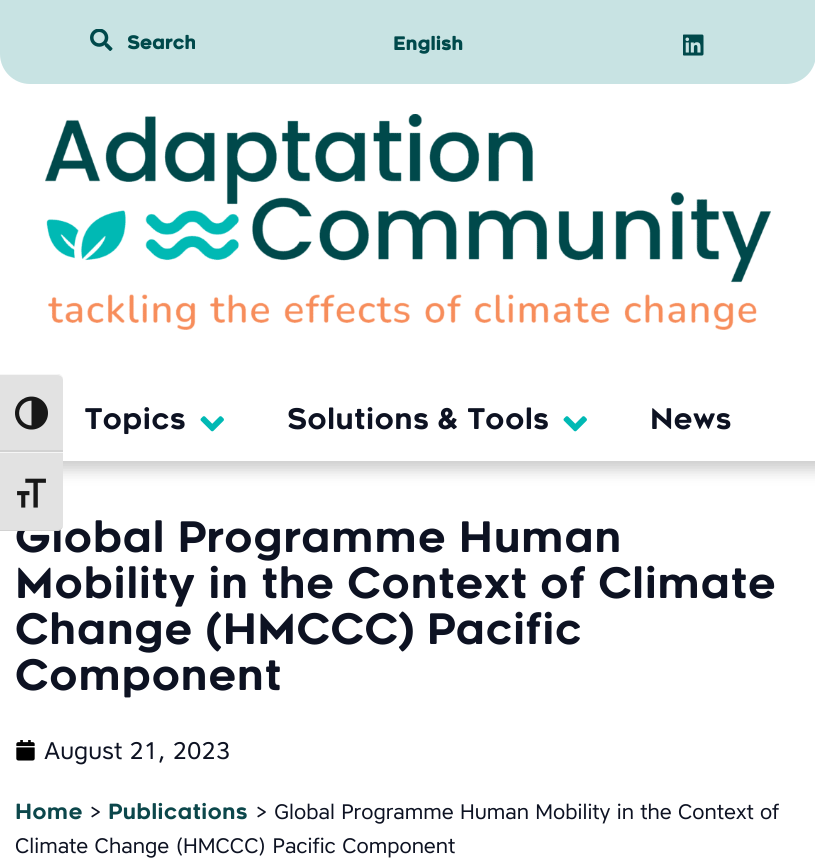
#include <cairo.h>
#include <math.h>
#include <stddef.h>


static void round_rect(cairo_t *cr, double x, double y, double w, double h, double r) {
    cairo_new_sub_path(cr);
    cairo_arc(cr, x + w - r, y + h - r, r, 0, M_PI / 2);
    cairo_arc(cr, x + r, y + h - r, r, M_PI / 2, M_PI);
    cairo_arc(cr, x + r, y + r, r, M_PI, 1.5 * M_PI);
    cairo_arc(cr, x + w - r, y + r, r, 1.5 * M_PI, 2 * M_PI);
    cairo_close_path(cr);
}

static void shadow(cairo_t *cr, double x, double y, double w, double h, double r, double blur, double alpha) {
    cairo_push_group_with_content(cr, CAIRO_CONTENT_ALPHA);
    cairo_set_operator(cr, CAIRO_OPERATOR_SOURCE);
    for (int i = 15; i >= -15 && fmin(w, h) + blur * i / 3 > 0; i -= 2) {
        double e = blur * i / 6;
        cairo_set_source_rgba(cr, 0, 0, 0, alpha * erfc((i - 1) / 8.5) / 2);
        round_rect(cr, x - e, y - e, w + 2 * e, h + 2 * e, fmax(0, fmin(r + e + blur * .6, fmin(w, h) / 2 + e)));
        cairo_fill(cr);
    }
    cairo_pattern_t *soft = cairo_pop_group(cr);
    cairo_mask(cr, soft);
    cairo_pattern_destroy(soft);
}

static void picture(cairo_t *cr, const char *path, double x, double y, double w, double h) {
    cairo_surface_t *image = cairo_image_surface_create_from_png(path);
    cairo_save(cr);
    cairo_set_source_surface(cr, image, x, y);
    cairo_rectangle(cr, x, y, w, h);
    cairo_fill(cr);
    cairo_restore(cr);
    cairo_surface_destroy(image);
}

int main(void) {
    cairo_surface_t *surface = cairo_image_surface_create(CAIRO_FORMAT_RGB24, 815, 867);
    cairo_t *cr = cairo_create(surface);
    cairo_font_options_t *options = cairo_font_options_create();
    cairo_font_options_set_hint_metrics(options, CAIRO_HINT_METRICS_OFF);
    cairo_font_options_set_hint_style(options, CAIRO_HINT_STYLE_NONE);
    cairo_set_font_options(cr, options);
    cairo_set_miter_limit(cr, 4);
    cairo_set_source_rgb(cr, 1, 1, 1);
    cairo_paint(cr);
    cairo_save(cr);
    cairo_set_fill_rule(cr, CAIRO_FILL_RULE_EVEN_ODD);
    cairo_new_path(cr);
    cairo_move_to(cr, 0, 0);
    cairo_line_to(cr, 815, 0);
    cairo_line_to(cr, 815, 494);
    cairo_line_to(cr, 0, 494);
    cairo_close_path(cr);
    cairo_move_to(cr, 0, 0);
    cairo_line_to(cr, 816, 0);
    cairo_line_to(cr, 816, 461);
    cairo_line_to(cr, 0, 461);
    cairo_close_path(cr);
    cairo_clip(cr);
    cairo_set_source_rgb(cr, 0, 0, 0);
    shadow(cr, 8, -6, 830, 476, 0, 7.5, 0.2);
    cairo_restore(cr);
    cairo_set_source_rgb(cr, 0.784, 0.89, 0.89);
    cairo_new_path(cr);
    cairo_move_to(cr, 0, 0);
    cairo_line_to(cr, 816, 0);
    cairo_line_to(cr, 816, 54);
    cairo_curve_to(cr, 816, 70.5, 802.5, 84, 786, 84);
    cairo_line_to(cr, 30, 84);
    cairo_curve_to(cr, 13.5, 84, 0, 70.5, 0, 54);
    cairo_close_path(cr);
    cairo_fill(cr);
    picture(cr, "img1.png", 90, 29, 23, 22);
    cairo_select_font_face(cr, "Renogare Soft", CAIRO_FONT_SLANT_NORMAL, CAIRO_FONT_WEIGHT_BOLD);
    cairo_set_font_size(cr, 18);
    cairo_set_source_rgb(cr, 0, 0.286, 0.294);
    cairo_move_to(cr, 127, 49);
    cairo_show_text(cr, "Search");
    cairo_move_to(cr, 393, 50);
    cairo_show_text(cr, "English");
    picture(cr, "img2.png", 683, 34, 21, 22);
    picture(cr, "img3.png", 45, 114, 726, 216);
    cairo_select_font_face(cr, "Renogare Soft", CAIRO_FONT_SLANT_NORMAL, CAIRO_FONT_WEIGHT_NORMAL);
    cairo_set_font_size(cr, 28.5);
    cairo_set_source_rgb(cr, 0.051, 0.071, 0.133);
    cairo_move_to(cr, 84, 429);
    cairo_show_text(cr, "Topics");
    picture(cr, "img4.png", 200, 416, 24, 16);
    cairo_move_to(cr, 287, 429);
    cairo_show_text(cr, "Solutions & Tools");
    picture(cr, "img4.png", 563, 416, 24, 16);
    cairo_move_to(cr, 650, 429);
    cairo_show_text(cr, "News");
    cairo_set_source_rgb(cr, 0.886, 0.886, 0.886);
    cairo_new_path(cr);
    cairo_move_to(cr, 0, 374);
    cairo_line_to(cr, 57, 374);
    cairo_curve_to(cr, 60.5, 374, 63, 376.5, 63, 380);
    cairo_line_to(cr, 63, 452);
    cairo_line_to(cr, 0, 452);
    cairo_close_path(cr);
    cairo_fill(cr);
    cairo_set_source_rgb(cr, 0.961, 0.961, 0.961);
    cairo_new_path(cr);
    cairo_move_to(cr, 0, 375);
    cairo_line_to(cr, 57, 375);
    cairo_curve_to(cr, 60, 375, 63, 377, 63, 380);
    cairo_curve_to(cr, 63, 376, 60, 374, 57, 374);
    cairo_line_to(cr, 0, 374);
    cairo_close_path(cr);
    cairo_fill(cr);
    cairo_set_source_rgb(cr, 0.824, 0.824, 0.824);
    cairo_rectangle(cr, 0, 450, 63, 2);
    cairo_fill(cr);
    picture(cr, "img5.png", 15, 396, 33, 34);
    cairo_set_font_size(cr, 42);
    cairo_set_source_rgb(cr, 0.051, 0.071, 0.133);
    cairo_move_to(cr, 15, 552);
    cairo_show_text(cr, "Global Programme Human");
    cairo_set_source_rgb(cr, 0.886, 0.886, 0.886);
    cairo_new_path(cr);
    cairo_move_to(cr, 0, 452);
    cairo_line_to(cr, 63, 452);
    cairo_line_to(cr, 63, 525);
    cairo_curve_to(cr, 63, 528.5, 60.5, 531, 57, 531);
    cairo_line_to(cr, 0, 531);
    cairo_close_path(cr);
    cairo_fill(cr);
    cairo_set_source_rgb(cr, 0.961, 0.961, 0.961);
    cairo_rectangle(cr, 0, 452, 63, 1);
    cairo_fill(cr);
    cairo_set_source_rgb(cr, 0.824, 0.824, 0.824);
    cairo_new_path(cr);
    cairo_move_to(cr, 0, 530);
    cairo_line_to(cr, 0, 531);
    cairo_line_to(cr, 57, 531);
    cairo_curve_to(cr, 60, 531, 63, 528, 63, 525);
    cairo_curve_to(cr, 63, 527, 60, 530, 57, 530);
    cairo_close_path(cr);
    cairo_fill(cr);
    picture(cr, "img6.png", 17, 478, 29, 30);
    cairo_set_source_rgb(cr, 0.051, 0.071, 0.133);
    cairo_move_to(cr, 15, 598);
    cairo_show_text(cr, "Mobility in the Context of Climate");
    cairo_move_to(cr, 15, 644);
    cairo_show_text(cr, "Change (HMCCC) Pacific");
    cairo_move_to(cr, 15, 690);
    cairo_show_text(cr, "Component");
    picture(cr, "img7.png", 16, 740, 19, 21);
    cairo_select_font_face(cr, "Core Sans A", CAIRO_FONT_SLANT_NORMAL, CAIRO_FONT_WEIGHT_NORMAL);
    cairo_set_font_size(cr, 24);
    cairo_move_to(cr, 44, 759);
    cairo_show_text(cr, "August 21, 2023");
    cairo_select_font_face(cr, "Renogare Soft", CAIRO_FONT_SLANT_NORMAL, CAIRO_FONT_WEIGHT_NORMAL);
    cairo_set_font_size(cr, 21);
    cairo_set_source_rgb(cr, 0.047, 0.278, 0.294);
    cairo_move_to(cr, 15, 819);
    cairo_show_text(cr, "Home");
    cairo_select_font_face(cr, "Core Sans A", CAIRO_FONT_SLANT_NORMAL, CAIRO_FONT_WEIGHT_NORMAL);
    cairo_set_source_rgb(cr, 0.051, 0.071, 0.133);
    cairo_move_to(cr, 89, 819);
    cairo_show_text(cr, ">");
    cairo_select_font_face(cr, "Renogare Soft", CAIRO_FONT_SLANT_NORMAL, CAIRO_FONT_WEIGHT_NORMAL);
    cairo_set_source_rgb(cr, 0.047, 0.278, 0.294);
    cairo_move_to(cr, 108, 819);
    cairo_show_text(cr, "Publications");
    cairo_select_font_face(cr, "Core Sans A", CAIRO_FONT_SLANT_NORMAL, CAIRO_FONT_WEIGHT_NORMAL);
    cairo_set_source_rgb(cr, 0.051, 0.071, 0.133);
    cairo_move_to(cr, 255, 819);
    cairo_show_text(cr, "> Global Programme Human Mobility in the Context of");
    cairo_move_to(cr, 15, 853);
    cairo_show_text(cr, "Climate Change (HMCCC) Pacific Component");
    cairo_surface_write_to_png(surface, "page.png");
    cairo_font_options_destroy(options);
    cairo_destroy(cr);
    cairo_surface_destroy(surface);
    return 0;
}
